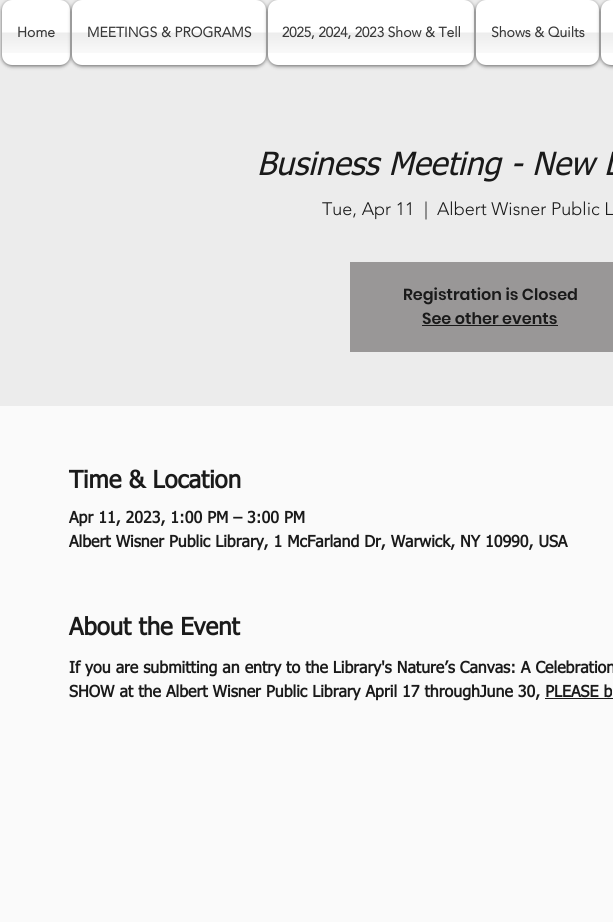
#include <cairo.h>
#include <math.h>
#include <stddef.h>


static void round_rect(cairo_t *cr, double x, double y, double w, double h, double r) {
    cairo_new_sub_path(cr);
    cairo_arc(cr, x + w - r, y + h - r, r, 0, M_PI / 2);
    cairo_arc(cr, x + r, y + h - r, r, M_PI / 2, M_PI);
    cairo_arc(cr, x + r, y + r, r, M_PI, 1.5 * M_PI);
    cairo_arc(cr, x + w - r, y + r, r, 1.5 * M_PI, 2 * M_PI);
    cairo_close_path(cr);
}

static void shadow(cairo_t *cr, double x, double y, double w, double h, double r, double blur, double alpha) {
    cairo_push_group_with_content(cr, CAIRO_CONTENT_ALPHA);
    cairo_set_operator(cr, CAIRO_OPERATOR_SOURCE);
    for (int i = 15; i >= -15 && fmin(w, h) + blur * i / 3 > 0; i -= 2) {
        double e = blur * i / 6;
        cairo_set_source_rgba(cr, 0, 0, 0, alpha * erfc((i - 1) / 8.5) / 2);
        round_rect(cr, x - e, y - e, w + 2 * e, h + 2 * e, fmax(0, fmin(r + e + blur * .6, fmin(w, h) / 2 + e)));
        cairo_fill(cr);
    }
    cairo_pattern_t *soft = cairo_pop_group(cr);
    cairo_mask(cr, soft);
    cairo_pattern_destroy(soft);
}

static void picture(cairo_t *cr, const char *path, double x, double y, double w, double h) {
    cairo_surface_t *image = cairo_image_surface_create_from_png(path);
    cairo_save(cr);
    cairo_set_source_surface(cr, image, x, y);
    cairo_rectangle(cr, x, y, w, h);
    cairo_fill(cr);
    cairo_restore(cr);
    cairo_surface_destroy(image);
}

int main(void) {
    cairo_surface_t *surface = cairo_image_surface_create(CAIRO_FORMAT_RGB24, 613, 922);
    cairo_t *cr = cairo_create(surface);
    cairo_font_options_t *options = cairo_font_options_create();
    cairo_font_options_set_hint_metrics(options, CAIRO_HINT_METRICS_OFF);
    cairo_font_options_set_hint_style(options, CAIRO_HINT_STYLE_NONE);
    cairo_set_font_options(cr, options);
    cairo_set_miter_limit(cr, 4);
    cairo_set_source_rgb(cr, 0.922, 0.922, 0.922);
    cairo_paint(cr);
    cairo_set_source_rgb(cr, 0, 0, 0);
    shadow(cr, 2, 1, 68, 65, 10, 2, 0.6);
    cairo_set_source_rgb(cr, 1, 1, 1);
    round_rect(cr, 2, 0, 68, 65, 10);
    cairo_fill(cr);
    picture(cr, "img1.png", 2, 32, 68, 21);
    cairo_select_font_face(cr, "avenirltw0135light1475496", CAIRO_FONT_SLANT_NORMAL, CAIRO_FONT_WEIGHT_BOLD);
    cairo_set_font_size(cr, 14);
    cairo_set_source_rgb(cr, 0.22, 0.22, 0.22);
    cairo_move_to(cr, 17, 37);
    cairo_show_text(cr, "Home");
    cairo_set_source_rgb(cr, 0, 0, 0);
    shadow(cr, 72, 1, 194, 65, 10, 2, 0.6);
    cairo_set_source_rgb(cr, 1, 1, 1);
    round_rect(cr, 72, 0, 194, 65, 10);
    cairo_fill(cr);
    picture(cr, "img2.png", 72, 32, 194, 21);
    cairo_set_source_rgb(cr, 0.22, 0.22, 0.22);
    cairo_move_to(cr, 87, 37);
    cairo_show_text(cr, "MEETINGS & PROGRAMS");
    cairo_set_source_rgb(cr, 0, 0, 0);
    shadow(cr, 268, 1, 206, 65, 10, 2, 0.6);
    cairo_set_source_rgb(cr, 1, 1, 1);
    round_rect(cr, 268, 0, 206, 65, 10);
    cairo_fill(cr);
    picture(cr, "img3.png", 268, 32, 206, 21);
    cairo_set_source_rgb(cr, 0.22, 0.22, 0.22);
    cairo_move_to(cr, 282, 37);
    cairo_show_text(cr, "2025, 2024, 2023 Show & Tell");
    cairo_set_source_rgb(cr, 0, 0, 0);
    shadow(cr, 476, 1, 123, 65, 10, 2, 0.6);
    cairo_set_source_rgb(cr, 1, 1, 1);
    round_rect(cr, 476, 0, 123, 65, 10);
    cairo_fill(cr);
    picture(cr, "img4.png", 476, 32, 123, 21);
    cairo_set_source_rgb(cr, 0.22, 0.22, 0.22);
    cairo_move_to(cr, 491, 37);
    cairo_show_text(cr, "Shows & Quilts");
    cairo_set_source_rgb(cr, 0, 0, 0);
    shadow(cr, 601, 1, 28, 65, 10, 2, 0.6);
    cairo_set_source_rgb(cr, 1, 1, 1);
    round_rect(cr, 601, 0, 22, 65, 10);
    cairo_fill(cr);
    picture(cr, "img5.png", 601, 32, 12, 21);
    cairo_select_font_face(cr, "tahoma", CAIRO_FONT_SLANT_ITALIC, CAIRO_FONT_WEIGHT_NORMAL);
    cairo_set_font_size(cr, 32);
    cairo_set_source_rgb(cr, 0.102, 0.102, 0.102);
    cairo_move_to(cr, 257, 175);
    cairo_show_text(cr, "Business Meeting - New L");
    cairo_select_font_face(cr, "avenirltw0135light1475496 Light", CAIRO_FONT_SLANT_NORMAL, CAIRO_FONT_WEIGHT_NORMAL);
    cairo_set_font_size(cr, 18);
    cairo_move_to(cr, 322, 215);
    cairo_show_text(cr, "Tue, Apr 11");
    cairo_move_to(cr, 424, 215);
    cairo_show_text(cr, "|");
    cairo_move_to(cr, 437, 215);
    cairo_show_text(cr, "Albert Wisner Public L");
    cairo_set_source_rgb(cr, 0.6, 0.592, 0.592);
    cairo_rectangle(cr, 350, 262, 263, 90);
    cairo_fill(cr);
    cairo_select_font_face(cr, "Poppins SemiBold", CAIRO_FONT_SLANT_NORMAL, CAIRO_FONT_WEIGHT_NORMAL);
    cairo_set_font_size(cr, 16);
    cairo_set_source_rgb(cr, 0.102, 0.102, 0.102);
    cairo_move_to(cr, 403, 300);
    cairo_show_text(cr, "Registration is Closed");
    cairo_move_to(cr, 422, 324);
    cairo_show_text(cr, "See other events");
    cairo_rectangle(cr, 422, 325, 136, 1);
    cairo_fill(cr);
    cairo_set_source_rgb(cr, 0.98, 0.98, 0.98);
    cairo_rectangle(cr, 0, 406, 613, 516);
    cairo_fill(cr);
    cairo_select_font_face(cr, "tahoma", CAIRO_FONT_SLANT_NORMAL, CAIRO_FONT_WEIGHT_BOLD);
    cairo_set_font_size(cr, 24);
    cairo_set_source_rgb(cr, 0.102, 0.102, 0.102);
    cairo_move_to(cr, 69, 488);
    cairo_show_text(cr, "Time & Location");
    cairo_set_font_size(cr, 16);
    cairo_move_to(cr, 69, 523);
    cairo_show_text(cr, "Apr 11, 2023, 1:00 PM – 3:00 PM");
    cairo_move_to(cr, 69, 547);
    cairo_show_text(cr, "Albert Wisner Public Library, 1 McFarland Dr, Warwick, NY 10990, USA");
    cairo_set_font_size(cr, 24);
    cairo_move_to(cr, 69, 635);
    cairo_show_text(cr, "About the Event");
    cairo_set_font_size(cr, 16);
    cairo_move_to(cr, 69, 673);
    cairo_show_text(cr, "If you are submitting an entry to the Library's Nature’s Canvas: A Celebration");
    cairo_move_to(cr, 69, 697);
    cairo_show_text(cr, "SHOW at the Albert Wisner Public Library April 17 throughJune 30, PLEASE b");
    cairo_rectangle(cr, 545, 698, 68, 1);
    cairo_fill(cr);
    cairo_surface_write_to_png(surface, "page.png");
    cairo_font_options_destroy(options);
    cairo_destroy(cr);
    cairo_surface_destroy(surface);
    return 0;
}
